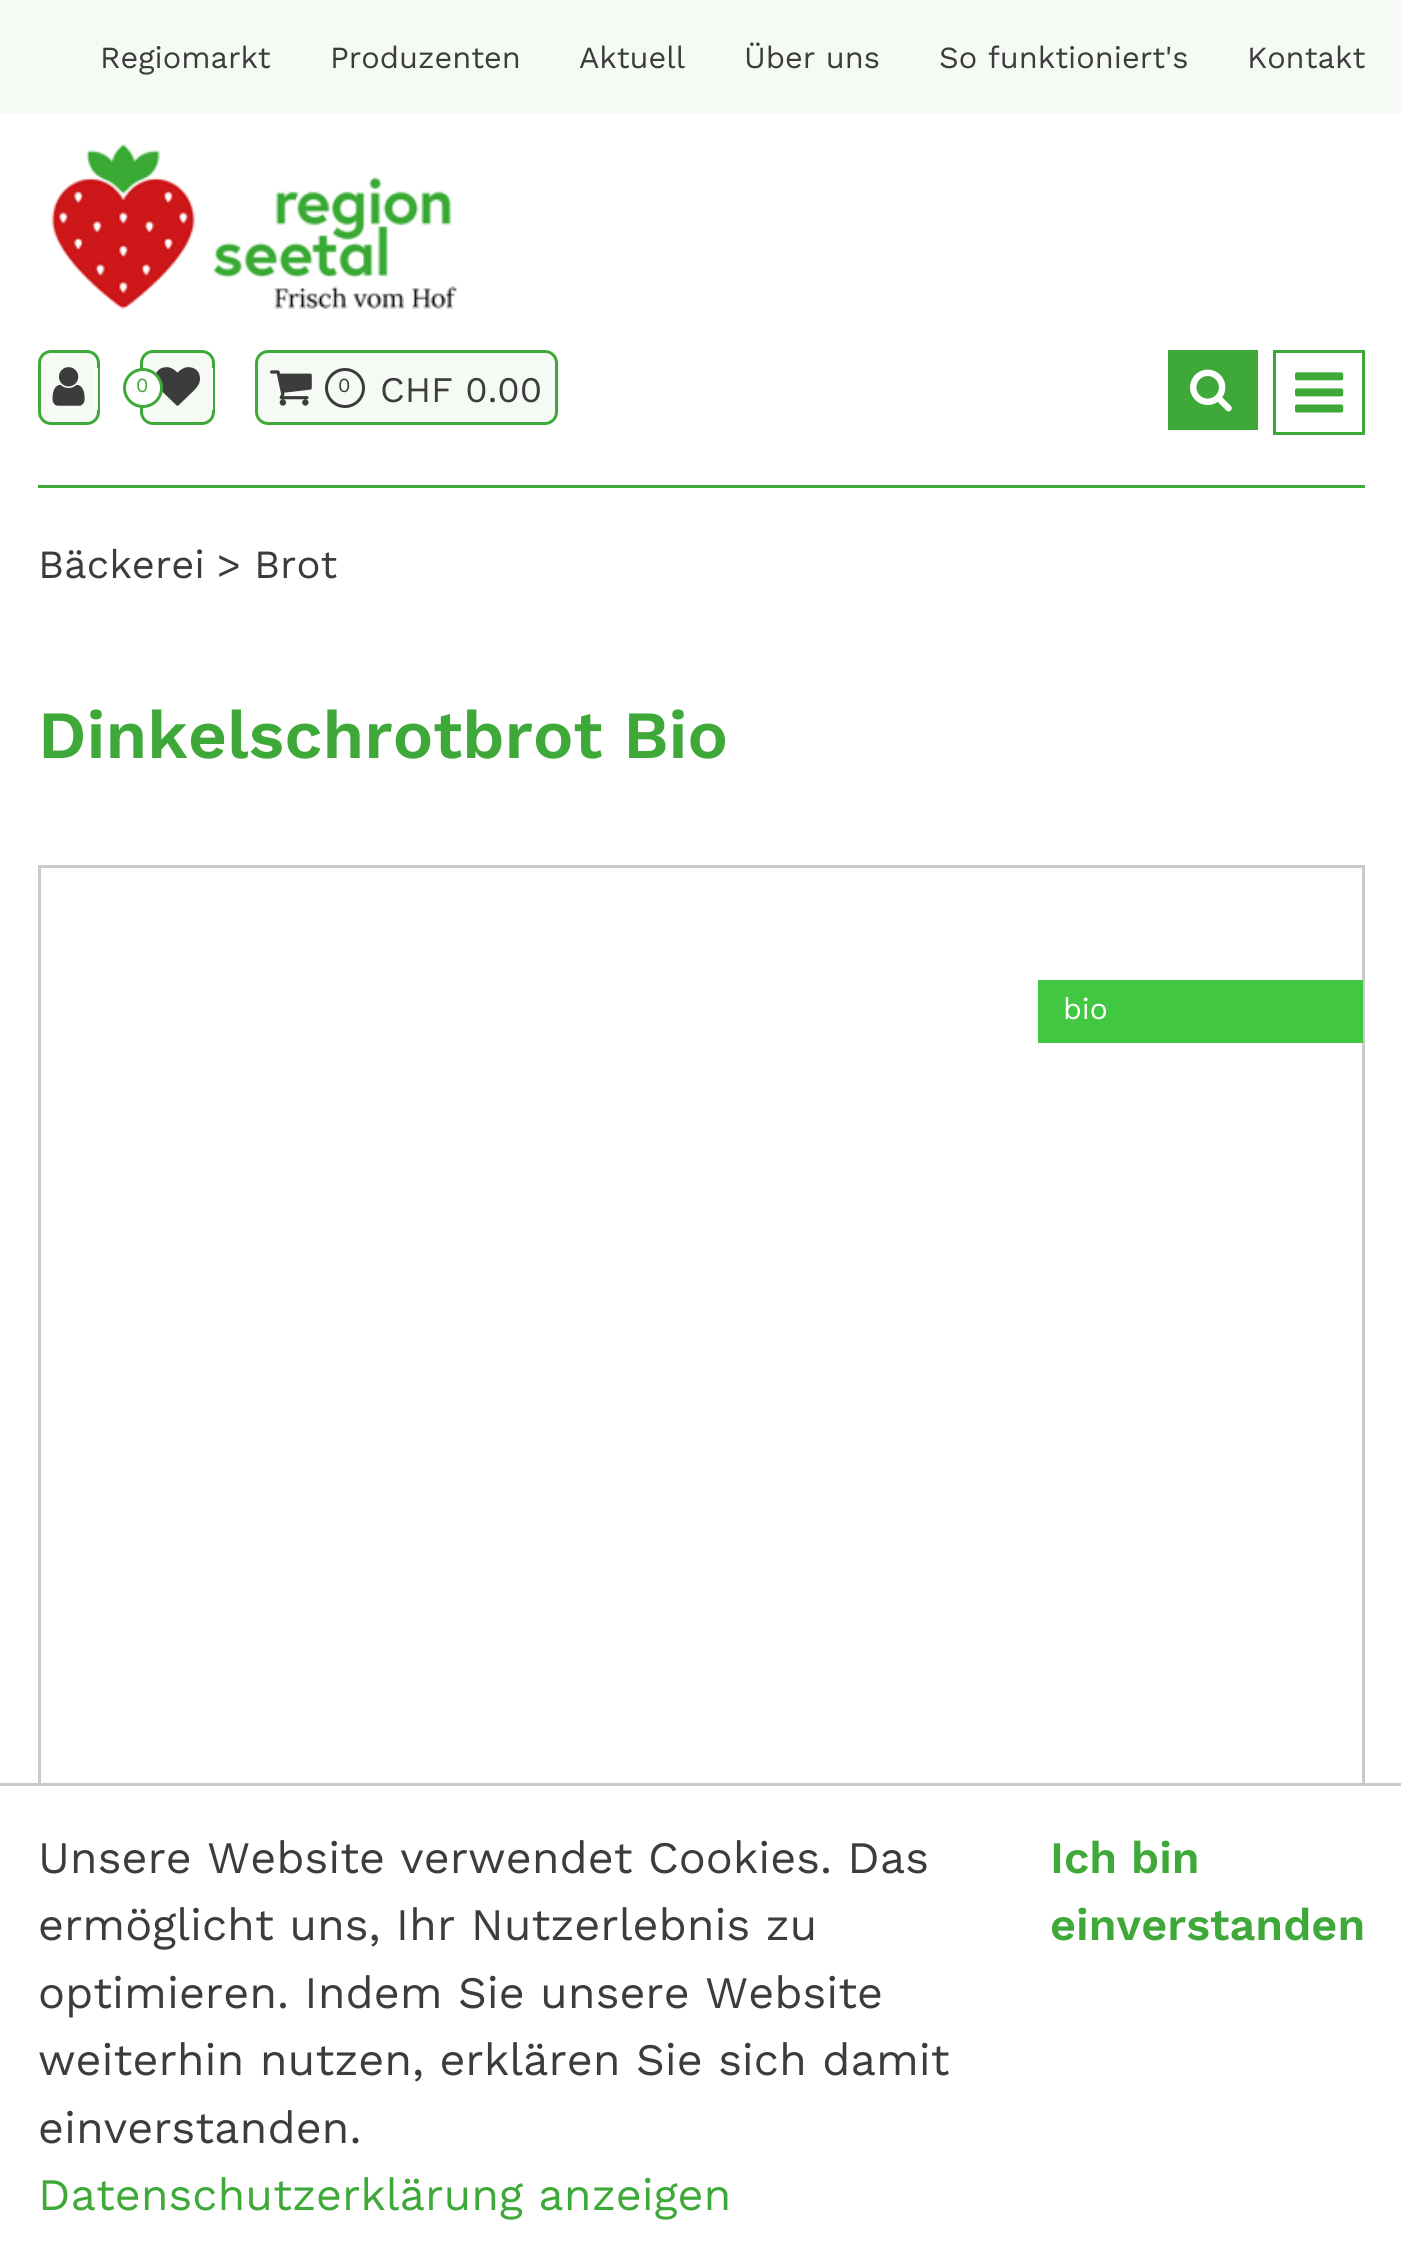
#include <cairo.h>
#include <math.h>
#include <stddef.h>


static void round_rect(cairo_t *cr, double x, double y, double w, double h, double r) {
    cairo_new_sub_path(cr);
    cairo_arc(cr, x + w - r, y + h - r, r, 0, M_PI / 2);
    cairo_arc(cr, x + r, y + h - r, r, M_PI / 2, M_PI);
    cairo_arc(cr, x + r, y + r, r, M_PI, 1.5 * M_PI);
    cairo_arc(cr, x + w - r, y + r, r, 1.5 * M_PI, 2 * M_PI);
    cairo_close_path(cr);
}

static void picture(cairo_t *cr, const char *path, double x, double y, double w, double h) {
    cairo_surface_t *image = cairo_image_surface_create_from_png(path);
    cairo_save(cr);
    cairo_set_source_surface(cr, image, x, y);
    cairo_rectangle(cr, x, y, w, h);
    cairo_fill(cr);
    cairo_restore(cr);
    cairo_surface_destroy(image);
}

int main(void) {
    cairo_surface_t *surface = cairo_image_surface_create(CAIRO_FORMAT_RGB24, 1401, 2264);
    cairo_t *cr = cairo_create(surface);
    cairo_font_options_t *options = cairo_font_options_create();
    cairo_font_options_set_hint_metrics(options, CAIRO_HINT_METRICS_OFF);
    cairo_font_options_set_hint_style(options, CAIRO_HINT_STYLE_NONE);
    cairo_set_font_options(cr, options);
    cairo_set_miter_limit(cr, 4);
    cairo_set_source_rgb(cr, 1, 1, 1);
    cairo_paint(cr);
    cairo_set_source_rgb(cr, 0.961, 0.98, 0.957);
    cairo_rectangle(cr, 0, 0, 1401, 113);
    cairo_fill(cr);
    cairo_select_font_face(cr, "Work Sans", CAIRO_FONT_SLANT_NORMAL, CAIRO_FONT_WEIGHT_NORMAL);
    cairo_set_font_size(cr, 30.75);
    cairo_set_source_rgb(cr, 0.235, 0.235, 0.235);
    cairo_move_to(cr, 100, 68);
    cairo_show_text(cr, "Regiomarkt");
    cairo_move_to(cr, 330, 68);
    cairo_show_text(cr, "Produzenten");
    cairo_move_to(cr, 579, 68);
    cairo_show_text(cr, "Aktuell");
    cairo_move_to(cr, 744, 68);
    cairo_show_text(cr, "Über uns");
    cairo_move_to(cr, 939, 68);
    cairo_show_text(cr, "So funktioniert's");
    cairo_move_to(cr, 1247, 68);
    cairo_show_text(cr, "Kontakt");
    picture(cr, "img1.png", 51, 144, 406, 165);
    cairo_set_source_rgb(cr, 0.961, 0.98, 0.957);
    round_rect(cr, 39.5, 351.5, 59, 72, 11.5);
    cairo_fill_preserve(cr);
    cairo_set_source_rgb(cr, 0.243, 0.659, 0.224);
    cairo_set_line_width(cr, 3);
    cairo_stroke(cr);
    picture(cr, "img2.png", 52, 367, 33, 39);
    cairo_set_source_rgb(cr, 1, 1, 1);
    cairo_rectangle(cr, 95, 368, 3, 42);
    cairo_fill(cr);
    cairo_set_source_rgb(cr, 0.961, 0.98, 0.957);
    round_rect(cr, 141.5, 351.5, 72, 72, 11.5);
    cairo_fill_preserve(cr);
    cairo_set_source_rgb(cr, 0.243, 0.659, 0.224);
    cairo_stroke(cr);
    picture(cr, "img3.png", 156, 367, 44, 39);
    cairo_set_source_rgb(cr, 1, 1, 1);
    cairo_arc(cr, 143, 388, 18.5, 0, 2 * M_PI);
    cairo_fill_preserve(cr);
    cairo_set_source_rgb(cr, 0.243, 0.659, 0.224);
    cairo_stroke(cr);
    cairo_set_font_size(cr, 20);
    cairo_move_to(cr, 136, 392);
    cairo_show_text(cr, "0");
    cairo_set_source_rgb(cr, 1, 1, 1);
    cairo_rectangle(cr, 210, 368, 3, 42);
    cairo_fill(cr);
    cairo_set_source_rgb(cr, 0.961, 0.98, 0.957);
    round_rect(cr, 256.5, 351.5, 300, 72, 11.5);
    cairo_fill_preserve(cr);
    cairo_set_source_rgb(cr, 0.243, 0.659, 0.224);
    cairo_stroke(cr);
    picture(cr, "img4.png", 270, 370, 42, 36);
    cairo_arc(cr, 345, 388, 18.5, 0, 2 * M_PI);
    cairo_set_source_rgb(cr, 0.235, 0.235, 0.235);
    cairo_stroke(cr);
    cairo_move_to(cr, 338, 392);
    cairo_show_text(cr, "0");
    cairo_set_font_size(cr, 36);
    cairo_move_to(cr, 380, 402);
    cairo_show_text(cr, "CHF 0.00");
    cairo_set_source_rgb(cr, 0.243, 0.659, 0.224);
    cairo_rectangle(cr, 1168, 350, 90, 80);
    cairo_fill(cr);
    picture(cr, "img5.png", 1190, 369, 42, 43);
    cairo_rectangle(cr, 1274.5, 351.5, 89, 82);
    cairo_stroke(cr);
    picture(cr, "img6.png", 1295, 372, 49, 41);
    cairo_rectangle(cr, 38, 485, 1327, 3);
    cairo_fill(cr);
    cairo_set_font_size(cr, 40);
    cairo_set_source_rgb(cr, 0.235, 0.235, 0.235);
    cairo_move_to(cr, 38, 578);
    cairo_show_text(cr, "Bäckerei");
    cairo_move_to(cr, 217, 578);
    cairo_show_text(cr, ">");
    cairo_move_to(cr, 254, 578);
    cairo_show_text(cr, "Brot");
    cairo_select_font_face(cr, "Work Sans SemiBold", CAIRO_FONT_SLANT_NORMAL, CAIRO_FONT_WEIGHT_NORMAL);
    cairo_set_font_size(cr, 67.5);
    cairo_set_source_rgb(cr, 0.243, 0.659, 0.224);
    cairo_move_to(cr, 38, 758);
    cairo_show_text(cr, "Dinkelschrotbrot Bio");
    cairo_rectangle(cr, 39.5, 866.5, 1324, 992);
    cairo_set_source_rgb(cr, 0.792, 0.792, 0.792);
    cairo_stroke(cr);
    cairo_set_source_rgb(cr, 0.259, 0.78, 0.259);
    cairo_rectangle(cr, 1038, 980, 325, 63);
    cairo_fill(cr);
    cairo_select_font_face(cr, "Work Sans", CAIRO_FONT_SLANT_NORMAL, CAIRO_FONT_WEIGHT_NORMAL);
    cairo_set_font_size(cr, 30);
    cairo_set_source_rgb(cr, 1, 1, 1);
    cairo_move_to(cr, 1063, 1019);
    cairo_show_text(cr, "bio");
    cairo_rectangle(cr, 38, 1786, 1327, 74);
    cairo_fill(cr);
    cairo_set_source_rgb(cr, 0.792, 0.792, 0.792);
    cairo_rectangle(cr, 0, 1783, 1401, 3);
    cairo_fill(cr);
    cairo_set_font_size(cr, 45);
    cairo_set_source_rgb(cr, 0.235, 0.235, 0.235);
    cairo_move_to(cr, 38, 1873);
    cairo_show_text(cr, "Unsere Website verwendet Cookies. Das");
    cairo_move_to(cr, 38, 1940);
    cairo_show_text(cr, "ermöglicht uns, Ihr Nutzerlebnis zu");
    cairo_move_to(cr, 38, 2008);
    cairo_show_text(cr, "optimieren. Indem Sie unsere Website");
    cairo_move_to(cr, 38, 2075);
    cairo_show_text(cr, "weiterhin nutzen, erklären Sie sich damit");
    cairo_move_to(cr, 38, 2143);
    cairo_show_text(cr, "einverstanden.");
    cairo_set_source_rgb(cr, 0.243, 0.659, 0.224);
    cairo_move_to(cr, 38, 2210);
    cairo_show_text(cr, "Datenschutzerklärung anzeigen");
    cairo_select_font_face(cr, "Work Sans SemiBold", CAIRO_FONT_SLANT_NORMAL, CAIRO_FONT_WEIGHT_NORMAL);
    cairo_move_to(cr, 1050, 1873);
    cairo_show_text(cr, "Ich bin");
    cairo_move_to(cr, 1050, 1940);
    cairo_show_text(cr, "einverstanden");
    cairo_surface_write_to_png(surface, "page.png");
    cairo_font_options_destroy(options);
    cairo_destroy(cr);
    cairo_surface_destroy(surface);
    return 0;
}
